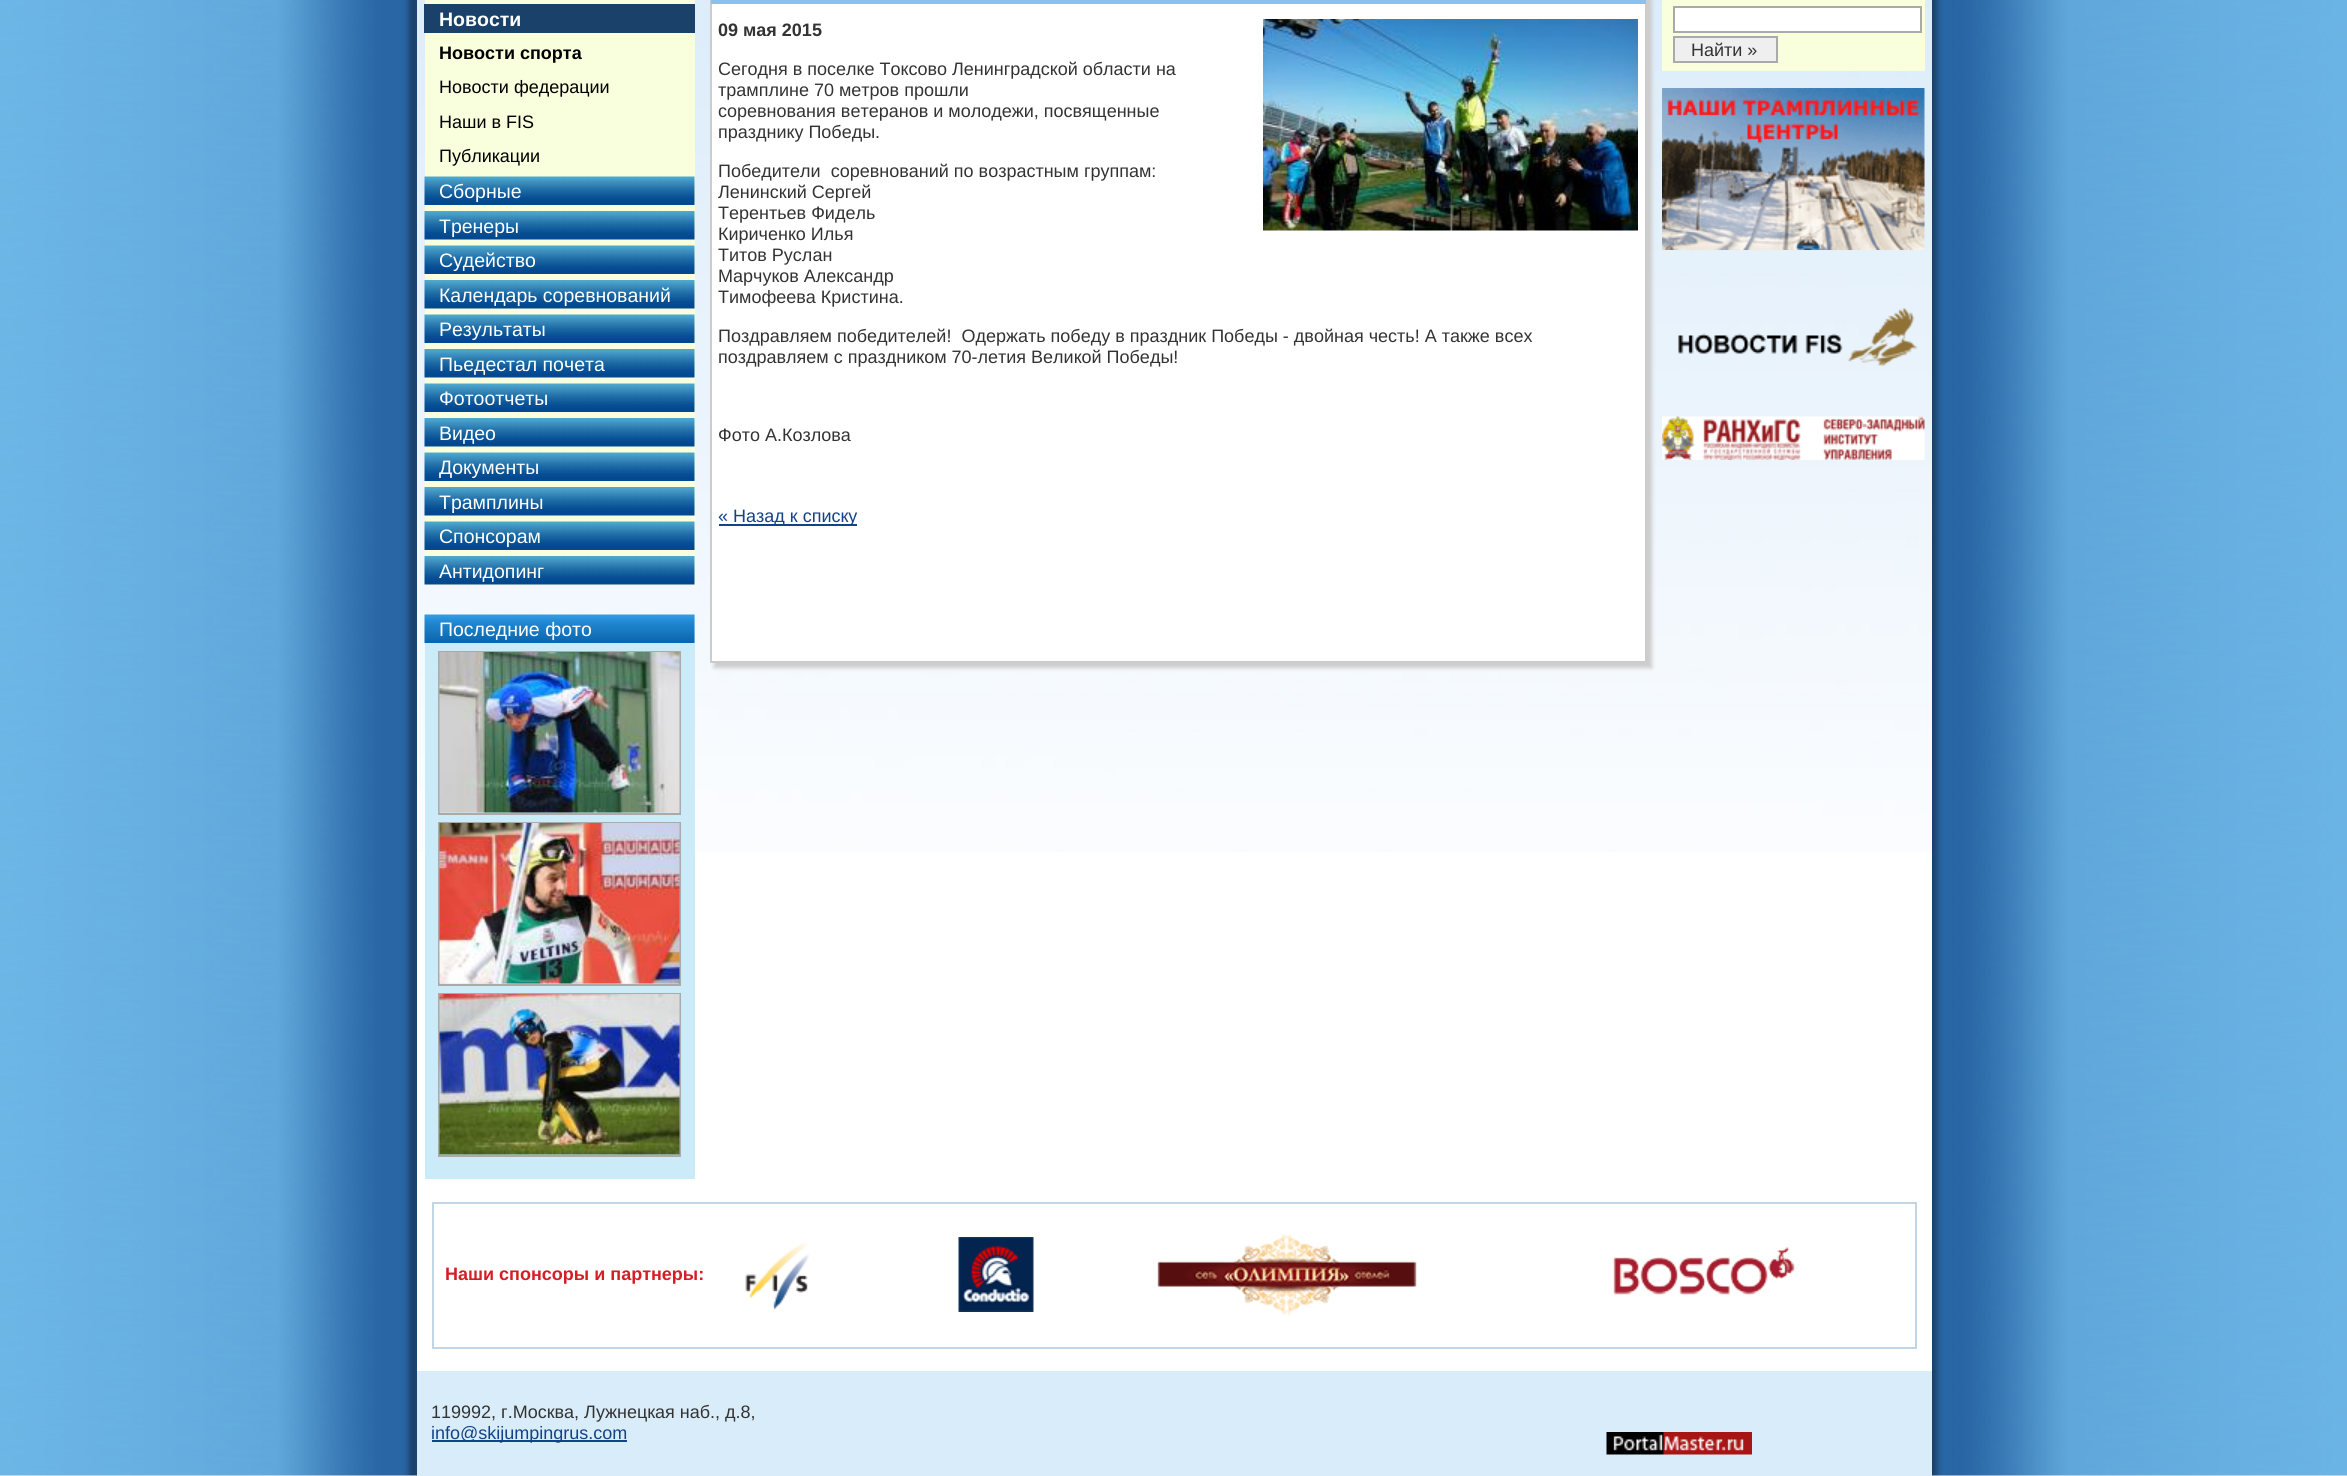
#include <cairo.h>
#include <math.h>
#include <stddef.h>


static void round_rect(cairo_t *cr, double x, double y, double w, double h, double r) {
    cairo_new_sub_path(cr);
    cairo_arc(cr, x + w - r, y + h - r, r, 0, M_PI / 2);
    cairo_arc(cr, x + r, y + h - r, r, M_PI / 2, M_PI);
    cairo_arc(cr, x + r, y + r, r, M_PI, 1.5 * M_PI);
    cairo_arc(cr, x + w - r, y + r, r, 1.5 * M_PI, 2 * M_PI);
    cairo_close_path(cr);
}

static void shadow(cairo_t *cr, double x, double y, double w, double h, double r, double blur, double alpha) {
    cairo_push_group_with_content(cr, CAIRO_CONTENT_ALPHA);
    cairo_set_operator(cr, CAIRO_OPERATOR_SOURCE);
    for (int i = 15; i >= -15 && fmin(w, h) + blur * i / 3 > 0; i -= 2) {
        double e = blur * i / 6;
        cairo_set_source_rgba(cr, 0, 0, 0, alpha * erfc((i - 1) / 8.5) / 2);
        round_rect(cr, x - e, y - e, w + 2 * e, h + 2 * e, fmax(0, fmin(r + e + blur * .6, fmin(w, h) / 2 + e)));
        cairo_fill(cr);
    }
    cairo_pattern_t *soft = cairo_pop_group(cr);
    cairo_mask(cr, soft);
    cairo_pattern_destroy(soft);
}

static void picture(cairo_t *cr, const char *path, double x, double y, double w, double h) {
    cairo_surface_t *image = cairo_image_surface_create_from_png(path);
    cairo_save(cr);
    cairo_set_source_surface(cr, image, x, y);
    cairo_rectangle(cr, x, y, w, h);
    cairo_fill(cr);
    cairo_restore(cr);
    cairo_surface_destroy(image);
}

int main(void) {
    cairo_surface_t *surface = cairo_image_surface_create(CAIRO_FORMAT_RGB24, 2347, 1476);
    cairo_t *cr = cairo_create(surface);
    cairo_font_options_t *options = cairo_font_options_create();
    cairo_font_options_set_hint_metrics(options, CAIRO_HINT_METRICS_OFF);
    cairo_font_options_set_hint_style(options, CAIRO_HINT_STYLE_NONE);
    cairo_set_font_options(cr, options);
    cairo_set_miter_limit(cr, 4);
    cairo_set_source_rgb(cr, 1, 1, 1);
    cairo_paint(cr);
    picture(cr, "img1.png", 0, 0, 2347, 1476);
    cairo_set_source_rgb(cr, 1, 1, 1);
    cairo_rectangle(cr, 417, 852, 1515, 519);
    cairo_fill(cr);
    picture(cr, "img2.png", 417, 0, 1515, 852);
    cairo_set_source_rgb(cr, 0.976, 0.996, 0.863);
    cairo_rectangle(cr, 425, 0, 270, 585);
    cairo_fill(cr);
    cairo_set_source_rgb(cr, 0.098, 0.255, 0.416);
    cairo_rectangle(cr, 424, 4, 271, 29);
    cairo_fill(cr);
    cairo_select_font_face(cr, "Liberation Sans", CAIRO_FONT_SLANT_NORMAL, CAIRO_FONT_WEIGHT_BOLD);
    cairo_set_font_size(cr, 19.5);
    cairo_set_source_rgb(cr, 1, 1, 1);
    cairo_move_to(cr, 439, 26);
    cairo_show_text(cr, "Новости");
    cairo_set_font_size(cr, 18);
    cairo_set_source_rgb(cr, 0, 0, 0);
    cairo_move_to(cr, 439, 59);
    cairo_show_text(cr, "Новости спорта");
    cairo_select_font_face(cr, "Liberation Sans", CAIRO_FONT_SLANT_NORMAL, CAIRO_FONT_WEIGHT_NORMAL);
    cairo_move_to(cr, 439, 93);
    cairo_show_text(cr, "Новости федерации");
    cairo_move_to(cr, 439, 128);
    cairo_show_text(cr, "Наши в FIS");
    cairo_move_to(cr, 439, 162);
    cairo_show_text(cr, "Публикации");
    picture(cr, "img3.png", 424, 176, 271, 29);
    cairo_set_font_size(cr, 19.5);
    cairo_set_source_rgb(cr, 1, 1, 1);
    cairo_move_to(cr, 439, 198);
    cairo_show_text(cr, "Сборные");
    picture(cr, "img4.png", 424, 211, 271, 29);
    cairo_move_to(cr, 439, 233);
    cairo_show_text(cr, "Тренеры");
    picture(cr, "img5.png", 424, 245, 271, 29);
    cairo_move_to(cr, 439, 267);
    cairo_show_text(cr, "Судейство");
    picture(cr, "img6.png", 424, 280, 271, 29);
    cairo_move_to(cr, 439, 302);
    cairo_show_text(cr, "Календарь соревнований");
    picture(cr, "img7.png", 424, 314, 271, 29);
    cairo_move_to(cr, 439, 336);
    cairo_show_text(cr, "Результаты");
    picture(cr, "img8.png", 424, 349, 271, 29);
    cairo_move_to(cr, 439, 371);
    cairo_show_text(cr, "Пьедестал почета");
    picture(cr, "img9.png", 424, 383, 271, 29);
    cairo_move_to(cr, 439, 405);
    cairo_show_text(cr, "Фотоотчеты");
    picture(cr, "img10.png", 424, 418, 271, 29);
    cairo_move_to(cr, 439, 440);
    cairo_show_text(cr, "Видео");
    picture(cr, "img11.png", 424, 452, 271, 29);
    cairo_move_to(cr, 439, 474);
    cairo_show_text(cr, "Документы");
    picture(cr, "img12.png", 424, 487, 271, 29);
    cairo_move_to(cr, 439, 509);
    cairo_show_text(cr, "Трамплины");
    picture(cr, "img13.png", 424, 521, 271, 29);
    cairo_move_to(cr, 439, 543);
    cairo_show_text(cr, "Спонсорам");
    picture(cr, "img14.png", 424, 556, 271, 29);
    cairo_move_to(cr, 439, 578);
    cairo_show_text(cr, "Антидопинг");
    cairo_set_source_rgb(cr, 0.8, 0.918, 0.973);
    cairo_rectangle(cr, 425, 615, 270, 564);
    cairo_fill(cr);
    picture(cr, "img15.png", 424, 614, 271, 29);
    cairo_set_source_rgb(cr, 1, 1, 1);
    cairo_move_to(cr, 439, 636);
    cairo_show_text(cr, "Последние фото");
    cairo_rectangle(cr, 439, 652, 241, 162);
    cairo_set_source_rgb(cr, 0.667, 0.667, 0.667);
    cairo_stroke(cr);
    picture(cr, "img16.png", 439, 652, 241, 161);
    cairo_rectangle(cr, 439, 823, 241, 162);
    cairo_stroke(cr);
    picture(cr, "img17.png", 439, 823, 241, 161);
    cairo_rectangle(cr, 439, 994, 241, 162);
    cairo_stroke(cr);
    picture(cr, "img18.png", 439, 994, 241, 161);
    cairo_set_source_rgb(cr, 0.8, 0.8, 0.8);
    shadow(cr, 714, -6, 938, 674, 0, 2, 1);
    cairo_set_source_rgb(cr, 1, 1, 1);
    cairo_rectangle(cr, 712, 4, 933, 657);
    cairo_fill(cr);
    cairo_rectangle(cr, 711, -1, 935, 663);
    cairo_set_source_rgb(cr, 0.8, 0.8, 0.8);
    cairo_stroke(cr);
    cairo_set_source_rgb(cr, 0.545, 0.757, 0.941);
    cairo_rectangle(cr, 711, 0, 935, 4);
    cairo_fill(cr);
    cairo_select_font_face(cr, "Liberation Sans", CAIRO_FONT_SLANT_NORMAL, CAIRO_FONT_WEIGHT_BOLD);
    cairo_set_font_size(cr, 18);
    cairo_set_source_rgb(cr, 0.2, 0.2, 0.2);
    cairo_move_to(cr, 718, 36);
    cairo_show_text(cr, "09 мая 2015");
    picture(cr, "img19.png", 1263, 19, 375, 212);
    cairo_select_font_face(cr, "Liberation Sans", CAIRO_FONT_SLANT_NORMAL, CAIRO_FONT_WEIGHT_NORMAL);
    cairo_move_to(cr, 718, 75);
    cairo_show_text(cr, "Сегодня в поселке Токсово Ленинградской области на");
    cairo_move_to(cr, 718, 96);
    cairo_show_text(cr, "трамплине 70 метров прошли");
    cairo_move_to(cr, 718, 117);
    cairo_show_text(cr, "соревнования ветеранов и молодежи, посвященные");
    cairo_move_to(cr, 718, 138);
    cairo_show_text(cr, "празднику Победы.");
    cairo_move_to(cr, 718, 177);
    cairo_show_text(cr, "Победители  соревнований по возрастным группам:");
    cairo_move_to(cr, 718, 198);
    cairo_show_text(cr, "Ленинский Сергей");
    cairo_move_to(cr, 718, 219);
    cairo_show_text(cr, "Терентьев Фидель");
    cairo_move_to(cr, 718, 240);
    cairo_show_text(cr, "Кириченко Илья");
    cairo_move_to(cr, 718, 261);
    cairo_show_text(cr, "Титов Руслан");
    cairo_move_to(cr, 718, 282);
    cairo_show_text(cr, "Марчуков Александр");
    cairo_move_to(cr, 718, 303);
    cairo_show_text(cr, "Тимофеева Кристина.");
    cairo_move_to(cr, 718, 342);
    cairo_show_text(cr, "Поздравляем победителей!  Одержать победу в праздник Победы - двойная честь! А также всех");
    cairo_move_to(cr, 718, 363);
    cairo_show_text(cr, "поздравляем с праздником 70-летия Великой Победы!");
    cairo_move_to(cr, 718, 441);
    cairo_show_text(cr, "Фото А.Козлова");
    cairo_set_source_rgb(cr, 0.067, 0.263, 0.537);
    cairo_rectangle(cr, 719, 524, 138, 2);
    cairo_fill(cr);
    cairo_move_to(cr, 718, 522);
    cairo_show_text(cr, "« Назад к списку");
    cairo_set_source_rgb(cr, 0.976, 0.996, 0.863);
    cairo_rectangle(cr, 1662, 0, 263, 71);
    cairo_fill(cr);
    cairo_set_source_rgb(cr, 1, 1, 1);
    cairo_rectangle(cr, 1674, 7, 247, 25);
    cairo_fill_preserve(cr);
    cairo_set_source_rgb(cr, 0.667, 0.667, 0.667);
    cairo_stroke(cr);
    cairo_set_source_rgb(cr, 0.937, 0.937, 0.937);
    cairo_rectangle(cr, 1674, 37, 103, 25);
    cairo_fill_preserve(cr);
    cairo_set_source_rgb(cr, 0.667, 0.667, 0.667);
    cairo_stroke(cr);
    cairo_set_source_rgb(cr, 0.2, 0.2, 0.2);
    cairo_move_to(cr, 1691, 56);
    cairo_show_text(cr, "Найти »");
    picture(cr, "img20.png", 1662, 88, 263, 162);
    picture(cr, "img21.png", 1678, 308, 240, 58);
    picture(cr, "img22.png", 1662, 416, 263, 44);
    cairo_rectangle(cr, 433, 1203, 1483, 145);
    cairo_set_source_rgb(cr, 0.757, 0.835, 0.894);
    cairo_stroke(cr);
    cairo_select_font_face(cr, "Liberation Sans", CAIRO_FONT_SLANT_NORMAL, CAIRO_FONT_WEIGHT_BOLD);
    cairo_set_source_rgb(cr, 0.827, 0.118, 0.141);
    cairo_move_to(cr, 445, 1280);
    cairo_show_text(cr, "Наши спонcоры и партнеры:");
    picture(cr, "img23.png", 745, 1242, 64, 68);
    picture(cr, "img24.png", 958, 1237, 76, 75);
    picture(cr, "img25.png", 1157, 1234, 260, 82);
    picture(cr, "img26.png", 1613, 1247, 182, 48);
    cairo_set_source_rgb(cr, 0.851, 0.922, 0.973);
    cairo_rectangle(cr, 417, 1371, 1515, 105);
    cairo_fill(cr);
    cairo_select_font_face(cr, "Liberation Sans", CAIRO_FONT_SLANT_NORMAL, CAIRO_FONT_WEIGHT_NORMAL);
    cairo_set_source_rgb(cr, 0.2, 0.2, 0.2);
    cairo_move_to(cr, 431, 1418);
    cairo_show_text(cr, "119992, г.Москва, Лужнецкая наб., д.8,");
    cairo_set_source_rgb(cr, 0.067, 0.263, 0.537);
    cairo_rectangle(cr, 432, 1440, 195, 2);
    cairo_fill(cr);
    cairo_move_to(cr, 431, 1439);
    cairo_show_text(cr, "info@skijumpingrus.com");
    picture(cr, "img27.png", 1606, 1432, 146, 23);
    cairo_surface_write_to_png(surface, "page.png");
    cairo_font_options_destroy(options);
    cairo_destroy(cr);
    cairo_surface_destroy(surface);
    return 0;
}
